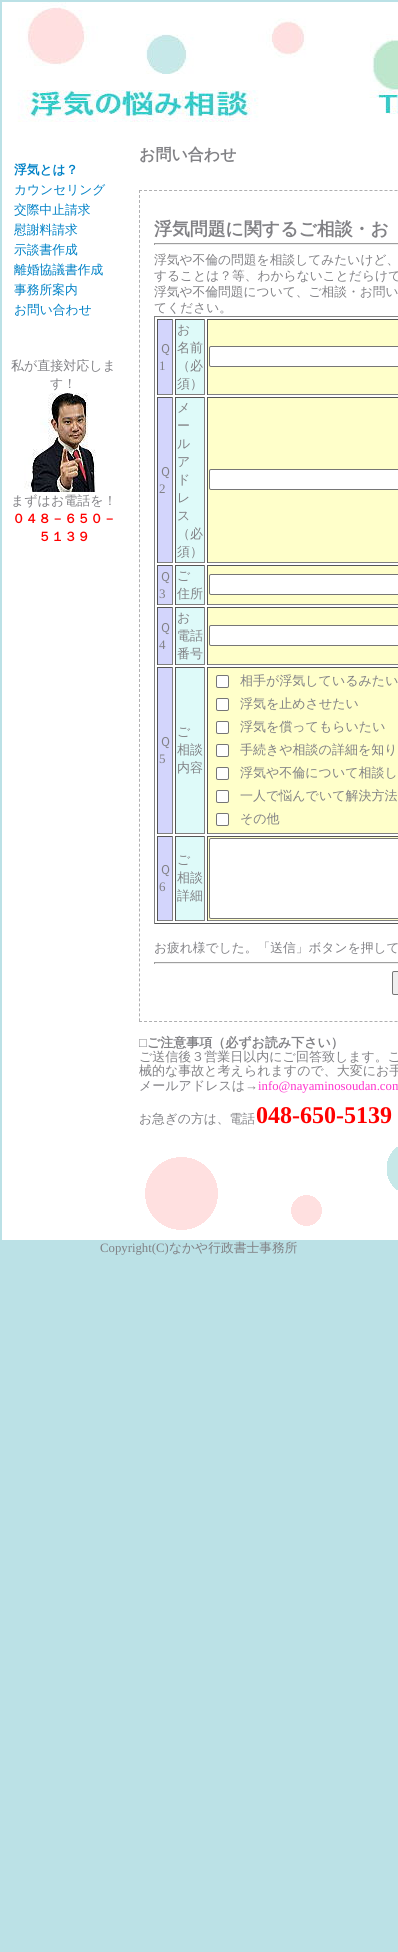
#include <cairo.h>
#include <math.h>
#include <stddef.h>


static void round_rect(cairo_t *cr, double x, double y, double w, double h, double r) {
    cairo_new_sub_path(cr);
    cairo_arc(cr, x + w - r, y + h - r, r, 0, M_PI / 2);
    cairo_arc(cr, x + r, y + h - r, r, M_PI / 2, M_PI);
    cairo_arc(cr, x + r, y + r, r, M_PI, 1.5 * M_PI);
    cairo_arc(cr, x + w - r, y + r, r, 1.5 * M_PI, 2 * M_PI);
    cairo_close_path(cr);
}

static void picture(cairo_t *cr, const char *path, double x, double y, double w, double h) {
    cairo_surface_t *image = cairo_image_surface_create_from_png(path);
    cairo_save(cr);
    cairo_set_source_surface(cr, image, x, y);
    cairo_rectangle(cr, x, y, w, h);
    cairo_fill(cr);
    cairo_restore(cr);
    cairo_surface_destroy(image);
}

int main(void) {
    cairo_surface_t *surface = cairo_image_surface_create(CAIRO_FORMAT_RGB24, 398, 1952);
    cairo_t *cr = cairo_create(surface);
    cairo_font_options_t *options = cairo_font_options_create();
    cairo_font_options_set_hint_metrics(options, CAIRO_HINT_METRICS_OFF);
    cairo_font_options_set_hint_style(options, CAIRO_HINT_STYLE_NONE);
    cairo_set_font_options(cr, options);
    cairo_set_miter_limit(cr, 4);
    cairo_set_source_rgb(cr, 0.733, 0.882, 0.902);
    cairo_paint(cr);
    picture(cr, "img1.png", 2, 2, 396, 132);
    cairo_set_source_rgb(cr, 1, 1, 1);
    cairo_rectangle(cr, 2, 134, 396, 1106);
    cairo_fill(cr);
    cairo_select_font_face(cr, "WenQuanYi Zen Hei", CAIRO_FONT_SLANT_NORMAL, CAIRO_FONT_WEIGHT_BOLD);
    cairo_set_font_size(cr, 12.75);
    cairo_set_source_rgb(cr, 0, 0.506, 0.776);
    cairo_move_to(cr, 14, 174);
    cairo_show_text(cr, "浮気とは？");
    cairo_select_font_face(cr, "WenQuanYi Zen Hei Medium", CAIRO_FONT_SLANT_NORMAL, CAIRO_FONT_WEIGHT_NORMAL);
    cairo_move_to(cr, 14, 194);
    cairo_show_text(cr, "カウンセリング");
    cairo_move_to(cr, 14, 214);
    cairo_show_text(cr, "交際中止請求");
    cairo_move_to(cr, 14, 234);
    cairo_show_text(cr, "慰謝料請求");
    cairo_move_to(cr, 14, 254);
    cairo_show_text(cr, "示談書作成");
    cairo_move_to(cr, 14, 274);
    cairo_show_text(cr, "離婚協議書作成");
    cairo_move_to(cr, 14, 294);
    cairo_show_text(cr, "事務所案内");
    cairo_move_to(cr, 14, 314);
    cairo_show_text(cr, "お問い合わせ");
    cairo_set_font_size(cr, 13);
    cairo_set_source_rgb(cr, 0.506, 0.506, 0.522);
    cairo_move_to(cr, 11, 370);
    cairo_show_text(cr, "私が直接対応しま");
    cairo_move_to(cr, 50, 388);
    cairo_show_text(cr, "す！");
    picture(cr, "img2.png", 24, 393, 72, 99);
    cairo_move_to(cr, 11, 505);
    cairo_show_text(cr, "まずはお電話を！");
    cairo_select_font_face(cr, "WenQuanYi Zen Hei", CAIRO_FONT_SLANT_NORMAL, CAIRO_FONT_WEIGHT_BOLD);
    cairo_set_source_rgb(cr, 1, 0, 0);
    cairo_move_to(cr, 12, 523);
    cairo_show_text(cr, "０４８－６５０－");
    cairo_move_to(cr, 38, 541);
    cairo_show_text(cr, "５１３９");
    cairo_set_font_size(cr, 16);
    cairo_set_source_rgb(cr, 0.506, 0.506, 0.522);
    cairo_move_to(cr, 139, 160);
    cairo_show_text(cr, "お問い合わせ");
    cairo_new_path(cr);
    cairo_move_to(cr, 139, 190.5);
    cairo_line_to(cr, 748, 190.5);
    cairo_set_source_rgb(cr, 0.686, 0.686, 0.694);
    cairo_set_line_width(cr, 1);
    cairo_set_dash(cr, (double[]){3, 2.01}, 2, 0);
    cairo_stroke(cr);
    cairo_new_path(cr);
    cairo_move_to(cr, 139, 1021.5);
    cairo_line_to(cr, 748, 1021.5);
    cairo_stroke(cr);
    cairo_new_path(cr);
    cairo_move_to(cr, 139.5, 190);
    cairo_line_to(cr, 139.5, 1022);
    cairo_set_dash(cr, (double[]){3, 1.99}, 2, 0);
    cairo_stroke(cr);
    cairo_set_font_size(cr, 17.9);
    cairo_set_source_rgb(cr, 0.506, 0.506, 0.522);
    cairo_move_to(cr, 154, 235);
    cairo_show_text(cr, "浮気問題に関するご相談・お");
    cairo_set_source_rgb(cr, 0.624, 0.624, 0.624);
    cairo_rectangle(cr, 154, 243, 244, 1);
    cairo_fill(cr);
    cairo_set_source_rgb(cr, 0.933, 0.933, 0.933);
    cairo_rectangle(cr, 154, 244, 244, 1);
    cairo_fill(cr);
    cairo_set_source_rgb(cr, 0.624, 0.624, 0.624);
    cairo_rectangle(cr, 154, 243, 1, 2);
    cairo_fill(cr);
    cairo_select_font_face(cr, "WenQuanYi Zen Hei Medium", CAIRO_FONT_SLANT_NORMAL, CAIRO_FONT_WEIGHT_NORMAL);
    cairo_set_font_size(cr, 12.75);
    cairo_set_source_rgb(cr, 0.506, 0.506, 0.522);
    cairo_move_to(cr, 154, 264);
    cairo_show_text(cr, "浮気や不倫の問題を相談してみたいけど、");
    cairo_move_to(cr, 154, 280);
    cairo_show_text(cr, "することは？等、わからないことだらけで");
    cairo_move_to(cr, 154, 296);
    cairo_show_text(cr, "浮気や不倫問題について、ご相談・お問い");
    cairo_move_to(cr, 154, 312);
    cairo_show_text(cr, "てください。");
    cairo_set_source_rgb(cr, 0.502, 0.502, 0.502);
    cairo_rectangle(cr, 154, 316, 244, 1);
    cairo_fill(cr);
    cairo_set_source_rgb(cr, 0.333, 0.333, 0.333);
    cairo_rectangle(cr, 154, 923, 244, 1);
    cairo_fill(cr);
    cairo_set_source_rgb(cr, 0.502, 0.502, 0.502);
    cairo_rectangle(cr, 154, 316, 1, 608);
    cairo_fill(cr);
    cairo_set_source_rgb(cr, 0.827, 0.835, 0.988);
    cairo_rectangle(cr, 158, 320, 14, 74);
    cairo_fill(cr);
    cairo_set_source_rgb(cr, 0.333, 0.333, 0.333);
    cairo_rectangle(cr, 157, 319, 16, 1);
    cairo_fill(cr);
    cairo_set_source_rgb(cr, 0.502, 0.502, 0.502);
    cairo_rectangle(cr, 172, 319, 1, 76);
    cairo_fill(cr);
    cairo_rectangle(cr, 157, 394, 16, 1);
    cairo_fill(cr);
    cairo_set_source_rgb(cr, 0.333, 0.333, 0.333);
    cairo_rectangle(cr, 157, 319, 1, 76);
    cairo_fill(cr);
    cairo_set_font_size(cr, 13);
    cairo_set_source_rgb(cr, 0.506, 0.506, 0.522);
    cairo_move_to(cr, 159, 353);
    cairo_show_text(cr, "Ｑ");
    cairo_select_font_face(cr, "Liberation Serif", CAIRO_FONT_SLANT_NORMAL, CAIRO_FONT_WEIGHT_NORMAL);
    cairo_move_to(cr, 159, 370);
    cairo_show_text(cr, "1");
    cairo_set_source_rgb(cr, 0.871, 0.98, 0.973);
    cairo_rectangle(cr, 176, 320, 28, 74);
    cairo_fill(cr);
    cairo_set_source_rgb(cr, 0.333, 0.333, 0.333);
    cairo_rectangle(cr, 175, 319, 30, 1);
    cairo_fill(cr);
    cairo_set_source_rgb(cr, 0.502, 0.502, 0.502);
    cairo_rectangle(cr, 204, 319, 1, 76);
    cairo_fill(cr);
    cairo_rectangle(cr, 175, 394, 30, 1);
    cairo_fill(cr);
    cairo_set_source_rgb(cr, 0.333, 0.333, 0.333);
    cairo_rectangle(cr, 175, 319, 1, 76);
    cairo_fill(cr);
    cairo_select_font_face(cr, "WenQuanYi Zen Hei Medium", CAIRO_FONT_SLANT_NORMAL, CAIRO_FONT_WEIGHT_NORMAL);
    cairo_set_source_rgb(cr, 0.506, 0.506, 0.522);
    cairo_move_to(cr, 177, 334);
    cairo_show_text(cr, "お");
    cairo_move_to(cr, 177, 352);
    cairo_show_text(cr, "名前");
    cairo_move_to(cr, 177, 370);
    cairo_show_text(cr, "（必");
    cairo_move_to(cr, 177, 388);
    cairo_show_text(cr, "須）");
    cairo_set_source_rgb(cr, 1, 1, 0.792);
    cairo_rectangle(cr, 208, 320, 190, 74);
    cairo_fill(cr);
    cairo_set_source_rgb(cr, 0.333, 0.333, 0.333);
    cairo_rectangle(cr, 207, 319, 191, 1);
    cairo_fill(cr);
    cairo_set_source_rgb(cr, 0.502, 0.502, 0.502);
    cairo_rectangle(cr, 207, 394, 191, 1);
    cairo_fill(cr);
    cairo_set_source_rgb(cr, 0.333, 0.333, 0.333);
    cairo_rectangle(cr, 207, 319, 1, 76);
    cairo_fill(cr);
    cairo_set_source_rgb(cr, 1, 1, 1);
    round_rect(cr, 209.5, 346.5, 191, 20, 1.5);
    cairo_fill_preserve(cr);
    cairo_set_source_rgb(cr, 0.463, 0.463, 0.463);
    cairo_set_dash(cr, NULL, 0, 0);
    cairo_stroke(cr);
    cairo_set_source_rgb(cr, 0.827, 0.835, 0.988);
    cairo_rectangle(cr, 158, 398, 14, 164);
    cairo_fill(cr);
    cairo_set_source_rgb(cr, 0.333, 0.333, 0.333);
    cairo_rectangle(cr, 157, 397, 16, 1);
    cairo_fill(cr);
    cairo_set_source_rgb(cr, 0.502, 0.502, 0.502);
    cairo_rectangle(cr, 172, 397, 1, 166);
    cairo_fill(cr);
    cairo_rectangle(cr, 157, 562, 16, 1);
    cairo_fill(cr);
    cairo_set_source_rgb(cr, 0.333, 0.333, 0.333);
    cairo_rectangle(cr, 157, 397, 1, 166);
    cairo_fill(cr);
    cairo_set_source_rgb(cr, 0.506, 0.506, 0.522);
    cairo_move_to(cr, 159, 476);
    cairo_show_text(cr, "Ｑ");
    cairo_select_font_face(cr, "Liberation Serif", CAIRO_FONT_SLANT_NORMAL, CAIRO_FONT_WEIGHT_NORMAL);
    cairo_move_to(cr, 159, 493);
    cairo_show_text(cr, "2");
    cairo_set_source_rgb(cr, 0.871, 0.98, 0.973);
    cairo_rectangle(cr, 176, 398, 28, 164);
    cairo_fill(cr);
    cairo_set_source_rgb(cr, 0.333, 0.333, 0.333);
    cairo_rectangle(cr, 175, 397, 30, 1);
    cairo_fill(cr);
    cairo_set_source_rgb(cr, 0.502, 0.502, 0.502);
    cairo_rectangle(cr, 204, 397, 1, 166);
    cairo_fill(cr);
    cairo_rectangle(cr, 175, 562, 30, 1);
    cairo_fill(cr);
    cairo_set_source_rgb(cr, 0.333, 0.333, 0.333);
    cairo_rectangle(cr, 175, 397, 1, 166);
    cairo_fill(cr);
    cairo_select_font_face(cr, "WenQuanYi Zen Hei Medium", CAIRO_FONT_SLANT_NORMAL, CAIRO_FONT_WEIGHT_NORMAL);
    cairo_set_source_rgb(cr, 0.506, 0.506, 0.522);
    cairo_move_to(cr, 177, 412);
    cairo_show_text(cr, "メ");
    cairo_move_to(cr, 177, 430);
    cairo_show_text(cr, "ー");
    cairo_move_to(cr, 177, 448);
    cairo_show_text(cr, "ル");
    cairo_move_to(cr, 177, 466);
    cairo_show_text(cr, "ア");
    cairo_move_to(cr, 177, 484);
    cairo_show_text(cr, "ド");
    cairo_move_to(cr, 177, 502);
    cairo_show_text(cr, "レ");
    cairo_move_to(cr, 177, 520);
    cairo_show_text(cr, "ス");
    cairo_move_to(cr, 177, 538);
    cairo_show_text(cr, "（必");
    cairo_move_to(cr, 177, 556);
    cairo_show_text(cr, "須）");
    cairo_set_source_rgb(cr, 1, 1, 0.792);
    cairo_rectangle(cr, 208, 398, 190, 164);
    cairo_fill(cr);
    cairo_set_source_rgb(cr, 0.333, 0.333, 0.333);
    cairo_rectangle(cr, 207, 397, 191, 1);
    cairo_fill(cr);
    cairo_set_source_rgb(cr, 0.502, 0.502, 0.502);
    cairo_rectangle(cr, 207, 562, 191, 1);
    cairo_fill(cr);
    cairo_set_source_rgb(cr, 0.333, 0.333, 0.333);
    cairo_rectangle(cr, 207, 397, 1, 166);
    cairo_fill(cr);
    cairo_set_source_rgb(cr, 1, 1, 1);
    round_rect(cr, 209.5, 469.5, 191, 20, 1.5);
    cairo_fill_preserve(cr);
    cairo_set_source_rgb(cr, 0.463, 0.463, 0.463);
    cairo_stroke(cr);
    cairo_set_source_rgb(cr, 0.827, 0.835, 0.988);
    cairo_rectangle(cr, 158, 566, 14, 38);
    cairo_fill(cr);
    cairo_set_source_rgb(cr, 0.333, 0.333, 0.333);
    cairo_rectangle(cr, 157, 565, 16, 1);
    cairo_fill(cr);
    cairo_set_source_rgb(cr, 0.502, 0.502, 0.502);
    cairo_rectangle(cr, 172, 565, 1, 40);
    cairo_fill(cr);
    cairo_rectangle(cr, 157, 604, 16, 1);
    cairo_fill(cr);
    cairo_set_source_rgb(cr, 0.333, 0.333, 0.333);
    cairo_rectangle(cr, 157, 565, 1, 40);
    cairo_fill(cr);
    cairo_set_source_rgb(cr, 0.506, 0.506, 0.522);
    cairo_move_to(cr, 159, 581);
    cairo_show_text(cr, "Ｑ");
    cairo_select_font_face(cr, "Liberation Serif", CAIRO_FONT_SLANT_NORMAL, CAIRO_FONT_WEIGHT_NORMAL);
    cairo_move_to(cr, 159, 598);
    cairo_show_text(cr, "3");
    cairo_set_source_rgb(cr, 0.871, 0.98, 0.973);
    cairo_rectangle(cr, 176, 566, 28, 38);
    cairo_fill(cr);
    cairo_set_source_rgb(cr, 0.333, 0.333, 0.333);
    cairo_rectangle(cr, 175, 565, 30, 1);
    cairo_fill(cr);
    cairo_set_source_rgb(cr, 0.502, 0.502, 0.502);
    cairo_rectangle(cr, 204, 565, 1, 40);
    cairo_fill(cr);
    cairo_rectangle(cr, 175, 604, 30, 1);
    cairo_fill(cr);
    cairo_set_source_rgb(cr, 0.333, 0.333, 0.333);
    cairo_rectangle(cr, 175, 565, 1, 40);
    cairo_fill(cr);
    cairo_select_font_face(cr, "WenQuanYi Zen Hei Medium", CAIRO_FONT_SLANT_NORMAL, CAIRO_FONT_WEIGHT_NORMAL);
    cairo_set_source_rgb(cr, 0.506, 0.506, 0.522);
    cairo_move_to(cr, 177, 580);
    cairo_show_text(cr, "ご");
    cairo_move_to(cr, 177, 598);
    cairo_show_text(cr, "住所");
    cairo_set_source_rgb(cr, 1, 1, 0.792);
    cairo_rectangle(cr, 208, 566, 190, 38);
    cairo_fill(cr);
    cairo_set_source_rgb(cr, 0.333, 0.333, 0.333);
    cairo_rectangle(cr, 207, 565, 191, 1);
    cairo_fill(cr);
    cairo_set_source_rgb(cr, 0.502, 0.502, 0.502);
    cairo_rectangle(cr, 207, 604, 191, 1);
    cairo_fill(cr);
    cairo_set_source_rgb(cr, 0.333, 0.333, 0.333);
    cairo_rectangle(cr, 207, 565, 1, 40);
    cairo_fill(cr);
    cairo_set_source_rgb(cr, 1, 1, 1);
    round_rect(cr, 209.5, 574.5, 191, 20, 1.5);
    cairo_fill_preserve(cr);
    cairo_set_source_rgb(cr, 0.463, 0.463, 0.463);
    cairo_stroke(cr);
    cairo_set_source_rgb(cr, 0.827, 0.835, 0.988);
    cairo_rectangle(cr, 158, 608, 14, 56);
    cairo_fill(cr);
    cairo_set_source_rgb(cr, 0.333, 0.333, 0.333);
    cairo_rectangle(cr, 157, 607, 16, 1);
    cairo_fill(cr);
    cairo_set_source_rgb(cr, 0.502, 0.502, 0.502);
    cairo_rectangle(cr, 172, 607, 1, 58);
    cairo_fill(cr);
    cairo_rectangle(cr, 157, 664, 16, 1);
    cairo_fill(cr);
    cairo_set_source_rgb(cr, 0.333, 0.333, 0.333);
    cairo_rectangle(cr, 157, 607, 1, 58);
    cairo_fill(cr);
    cairo_set_source_rgb(cr, 0.506, 0.506, 0.522);
    cairo_move_to(cr, 159, 632);
    cairo_show_text(cr, "Ｑ");
    cairo_select_font_face(cr, "Liberation Serif", CAIRO_FONT_SLANT_NORMAL, CAIRO_FONT_WEIGHT_NORMAL);
    cairo_move_to(cr, 159, 649);
    cairo_show_text(cr, "4");
    cairo_set_source_rgb(cr, 0.871, 0.98, 0.973);
    cairo_rectangle(cr, 176, 608, 28, 56);
    cairo_fill(cr);
    cairo_set_source_rgb(cr, 0.333, 0.333, 0.333);
    cairo_rectangle(cr, 175, 607, 30, 1);
    cairo_fill(cr);
    cairo_set_source_rgb(cr, 0.502, 0.502, 0.502);
    cairo_rectangle(cr, 204, 607, 1, 58);
    cairo_fill(cr);
    cairo_rectangle(cr, 175, 664, 30, 1);
    cairo_fill(cr);
    cairo_set_source_rgb(cr, 0.333, 0.333, 0.333);
    cairo_rectangle(cr, 175, 607, 1, 58);
    cairo_fill(cr);
    cairo_select_font_face(cr, "WenQuanYi Zen Hei Medium", CAIRO_FONT_SLANT_NORMAL, CAIRO_FONT_WEIGHT_NORMAL);
    cairo_set_source_rgb(cr, 0.506, 0.506, 0.522);
    cairo_move_to(cr, 177, 622);
    cairo_show_text(cr, "お");
    cairo_move_to(cr, 177, 640);
    cairo_show_text(cr, "電話");
    cairo_move_to(cr, 177, 658);
    cairo_show_text(cr, "番号");
    cairo_set_source_rgb(cr, 1, 1, 0.792);
    cairo_rectangle(cr, 208, 608, 190, 56);
    cairo_fill(cr);
    cairo_set_source_rgb(cr, 0.333, 0.333, 0.333);
    cairo_rectangle(cr, 207, 607, 191, 1);
    cairo_fill(cr);
    cairo_set_source_rgb(cr, 0.502, 0.502, 0.502);
    cairo_rectangle(cr, 207, 664, 191, 1);
    cairo_fill(cr);
    cairo_set_source_rgb(cr, 0.333, 0.333, 0.333);
    cairo_rectangle(cr, 207, 607, 1, 58);
    cairo_fill(cr);
    cairo_set_source_rgb(cr, 1, 1, 1);
    round_rect(cr, 209.5, 625.5, 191, 20, 1.5);
    cairo_fill_preserve(cr);
    cairo_set_source_rgb(cr, 0.463, 0.463, 0.463);
    cairo_stroke(cr);
    cairo_set_source_rgb(cr, 0.827, 0.835, 0.988);
    cairo_rectangle(cr, 158, 668, 14, 165);
    cairo_fill(cr);
    cairo_set_source_rgb(cr, 0.333, 0.333, 0.333);
    cairo_rectangle(cr, 157, 667, 16, 1);
    cairo_fill(cr);
    cairo_set_source_rgb(cr, 0.502, 0.502, 0.502);
    cairo_rectangle(cr, 172, 667, 1, 167);
    cairo_fill(cr);
    cairo_rectangle(cr, 157, 833, 16, 1);
    cairo_fill(cr);
    cairo_set_source_rgb(cr, 0.333, 0.333, 0.333);
    cairo_rectangle(cr, 157, 667, 1, 167);
    cairo_fill(cr);
    cairo_set_source_rgb(cr, 0.506, 0.506, 0.522);
    cairo_move_to(cr, 159, 746);
    cairo_show_text(cr, "Ｑ");
    cairo_select_font_face(cr, "Liberation Serif", CAIRO_FONT_SLANT_NORMAL, CAIRO_FONT_WEIGHT_NORMAL);
    cairo_move_to(cr, 159, 763);
    cairo_show_text(cr, "5");
    cairo_set_source_rgb(cr, 0.871, 0.98, 0.973);
    cairo_rectangle(cr, 176, 668, 28, 165);
    cairo_fill(cr);
    cairo_set_source_rgb(cr, 0.333, 0.333, 0.333);
    cairo_rectangle(cr, 175, 667, 30, 1);
    cairo_fill(cr);
    cairo_set_source_rgb(cr, 0.502, 0.502, 0.502);
    cairo_rectangle(cr, 204, 667, 1, 167);
    cairo_fill(cr);
    cairo_rectangle(cr, 175, 833, 30, 1);
    cairo_fill(cr);
    cairo_set_source_rgb(cr, 0.333, 0.333, 0.333);
    cairo_rectangle(cr, 175, 667, 1, 167);
    cairo_fill(cr);
    cairo_select_font_face(cr, "WenQuanYi Zen Hei Medium", CAIRO_FONT_SLANT_NORMAL, CAIRO_FONT_WEIGHT_NORMAL);
    cairo_set_source_rgb(cr, 0.506, 0.506, 0.522);
    cairo_move_to(cr, 177, 736);
    cairo_show_text(cr, "ご");
    cairo_move_to(cr, 177, 754);
    cairo_show_text(cr, "相談");
    cairo_move_to(cr, 177, 772);
    cairo_show_text(cr, "内容");
    cairo_set_source_rgb(cr, 1, 1, 0.792);
    cairo_rectangle(cr, 208, 668, 190, 165);
    cairo_fill(cr);
    cairo_set_source_rgb(cr, 0.333, 0.333, 0.333);
    cairo_rectangle(cr, 207, 667, 191, 1);
    cairo_fill(cr);
    cairo_set_source_rgb(cr, 0.502, 0.502, 0.502);
    cairo_rectangle(cr, 207, 833, 191, 1);
    cairo_fill(cr);
    cairo_set_source_rgb(cr, 0.333, 0.333, 0.333);
    cairo_rectangle(cr, 207, 667, 1, 167);
    cairo_fill(cr);
    cairo_set_source_rgb(cr, 1, 1, 1);
    round_rect(cr, 216.5, 675.5, 12, 12, 1.5);
    cairo_fill_preserve(cr);
    cairo_set_source_rgb(cr, 0.463, 0.463, 0.463);
    cairo_stroke(cr);
    cairo_set_source_rgb(cr, 0.506, 0.506, 0.522);
    cairo_move_to(cr, 240, 685);
    cairo_show_text(cr, "相手が浮気しているみたい");
    cairo_set_source_rgb(cr, 1, 1, 1);
    round_rect(cr, 216.5, 698.5, 12, 12, 1.5);
    cairo_fill_preserve(cr);
    cairo_set_source_rgb(cr, 0.463, 0.463, 0.463);
    cairo_stroke(cr);
    cairo_set_source_rgb(cr, 0.506, 0.506, 0.522);
    cairo_move_to(cr, 240, 708);
    cairo_show_text(cr, "浮気を止めさせたい");
    cairo_set_source_rgb(cr, 1, 1, 1);
    round_rect(cr, 216.5, 721.5, 12, 12, 1.5);
    cairo_fill_preserve(cr);
    cairo_set_source_rgb(cr, 0.463, 0.463, 0.463);
    cairo_stroke(cr);
    cairo_set_source_rgb(cr, 0.506, 0.506, 0.522);
    cairo_move_to(cr, 240, 731);
    cairo_show_text(cr, "浮気を償ってもらいたい");
    cairo_set_source_rgb(cr, 1, 1, 1);
    round_rect(cr, 216.5, 744.5, 12, 12, 1.5);
    cairo_fill_preserve(cr);
    cairo_set_source_rgb(cr, 0.463, 0.463, 0.463);
    cairo_stroke(cr);
    cairo_set_source_rgb(cr, 0.506, 0.506, 0.522);
    cairo_move_to(cr, 240, 754);
    cairo_show_text(cr, "手続きや相談の詳細を知り");
    cairo_set_source_rgb(cr, 1, 1, 1);
    round_rect(cr, 216.5, 767.5, 12, 12, 1.5);
    cairo_fill_preserve(cr);
    cairo_set_source_rgb(cr, 0.463, 0.463, 0.463);
    cairo_stroke(cr);
    cairo_set_source_rgb(cr, 0.506, 0.506, 0.522);
    cairo_move_to(cr, 240, 777);
    cairo_show_text(cr, "浮気や不倫について相談し");
    cairo_set_source_rgb(cr, 1, 1, 1);
    round_rect(cr, 216.5, 790.5, 12, 12, 1.5);
    cairo_fill_preserve(cr);
    cairo_set_source_rgb(cr, 0.463, 0.463, 0.463);
    cairo_stroke(cr);
    cairo_set_source_rgb(cr, 0.506, 0.506, 0.522);
    cairo_move_to(cr, 240, 800);
    cairo_show_text(cr, "一人で悩んでいて解決方法");
    cairo_set_source_rgb(cr, 1, 1, 1);
    round_rect(cr, 216.5, 813.5, 12, 12, 1.5);
    cairo_fill_preserve(cr);
    cairo_set_source_rgb(cr, 0.463, 0.463, 0.463);
    cairo_stroke(cr);
    cairo_set_source_rgb(cr, 0.506, 0.506, 0.522);
    cairo_move_to(cr, 240, 823);
    cairo_show_text(cr, "その他");
    cairo_set_source_rgb(cr, 0.827, 0.835, 0.988);
    cairo_rectangle(cr, 158, 837, 14, 83);
    cairo_fill(cr);
    cairo_set_source_rgb(cr, 0.333, 0.333, 0.333);
    cairo_rectangle(cr, 157, 836, 16, 1);
    cairo_fill(cr);
    cairo_set_source_rgb(cr, 0.502, 0.502, 0.502);
    cairo_rectangle(cr, 172, 836, 1, 85);
    cairo_fill(cr);
    cairo_rectangle(cr, 157, 920, 16, 1);
    cairo_fill(cr);
    cairo_set_source_rgb(cr, 0.333, 0.333, 0.333);
    cairo_rectangle(cr, 157, 836, 1, 85);
    cairo_fill(cr);
    cairo_set_source_rgb(cr, 0.506, 0.506, 0.522);
    cairo_move_to(cr, 159, 874);
    cairo_show_text(cr, "Ｑ");
    cairo_select_font_face(cr, "Liberation Serif", CAIRO_FONT_SLANT_NORMAL, CAIRO_FONT_WEIGHT_NORMAL);
    cairo_move_to(cr, 159, 891);
    cairo_show_text(cr, "6");
    cairo_set_source_rgb(cr, 0.871, 0.98, 0.973);
    cairo_rectangle(cr, 176, 837, 28, 83);
    cairo_fill(cr);
    cairo_set_source_rgb(cr, 0.333, 0.333, 0.333);
    cairo_rectangle(cr, 175, 836, 30, 1);
    cairo_fill(cr);
    cairo_set_source_rgb(cr, 0.502, 0.502, 0.502);
    cairo_rectangle(cr, 204, 836, 1, 85);
    cairo_fill(cr);
    cairo_rectangle(cr, 175, 920, 30, 1);
    cairo_fill(cr);
    cairo_set_source_rgb(cr, 0.333, 0.333, 0.333);
    cairo_rectangle(cr, 175, 836, 1, 85);
    cairo_fill(cr);
    cairo_select_font_face(cr, "WenQuanYi Zen Hei Medium", CAIRO_FONT_SLANT_NORMAL, CAIRO_FONT_WEIGHT_NORMAL);
    cairo_set_source_rgb(cr, 0.506, 0.506, 0.522);
    cairo_move_to(cr, 177, 864);
    cairo_show_text(cr, "ご");
    cairo_move_to(cr, 177, 882);
    cairo_show_text(cr, "相談");
    cairo_move_to(cr, 177, 900);
    cairo_show_text(cr, "詳細");
    cairo_set_source_rgb(cr, 1, 1, 0.792);
    cairo_rectangle(cr, 208, 837, 190, 83);
    cairo_fill(cr);
    cairo_set_source_rgb(cr, 0.333, 0.333, 0.333);
    cairo_rectangle(cr, 207, 836, 191, 1);
    cairo_fill(cr);
    cairo_set_source_rgb(cr, 0.502, 0.502, 0.502);
    cairo_rectangle(cr, 207, 920, 191, 1);
    cairo_fill(cr);
    cairo_set_source_rgb(cr, 0.333, 0.333, 0.333);
    cairo_rectangle(cr, 207, 836, 1, 85);
    cairo_fill(cr);
    cairo_set_source_rgb(cr, 1, 1, 1);
    round_rect(cr, 209.5, 838.5, 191, 80, 1.5);
    cairo_fill_preserve(cr);
    cairo_set_source_rgb(cr, 0.463, 0.463, 0.463);
    cairo_stroke(cr);
    cairo_set_font_size(cr, 12.75);
    cairo_set_source_rgb(cr, 0.506, 0.506, 0.522);
    cairo_move_to(cr, 154, 952);
    cairo_show_text(cr, "お疲れ様でした。「送信」ボタンを押して");
    cairo_set_source_rgb(cr, 0.624, 0.624, 0.624);
    cairo_rectangle(cr, 154, 962, 244, 1);
    cairo_fill(cr);
    cairo_set_source_rgb(cr, 0.933, 0.933, 0.933);
    cairo_rectangle(cr, 154, 963, 244, 1);
    cairo_fill(cr);
    cairo_set_source_rgb(cr, 0.624, 0.624, 0.624);
    cairo_rectangle(cr, 154, 962, 1, 2);
    cairo_fill(cr);
    cairo_set_source_rgb(cr, 0.937, 0.937, 0.937);
    round_rect(cr, 392.5, 971.5, 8, 23, 1.5);
    cairo_fill_preserve(cr);
    cairo_set_source_rgb(cr, 0.463, 0.463, 0.463);
    cairo_stroke(cr);
    cairo_select_font_face(cr, "Liberation Serif", CAIRO_FONT_SLANT_NORMAL, CAIRO_FONT_WEIGHT_BOLD);
    cairo_set_font_size(cr, 13);
    cairo_set_source_rgb(cr, 0.506, 0.506, 0.522);
    cairo_move_to(cr, 139, 1047);
    cairo_show_text(cr, "□");
    cairo_select_font_face(cr, "WenQuanYi Zen Hei", CAIRO_FONT_SLANT_NORMAL, CAIRO_FONT_WEIGHT_BOLD);
    cairo_move_to(cr, 147, 1047);
    cairo_show_text(cr, "ご注意事項（必ずお読み下さい）");
    cairo_select_font_face(cr, "WenQuanYi Zen Hei Medium", CAIRO_FONT_SLANT_NORMAL, CAIRO_FONT_WEIGHT_NORMAL);
    cairo_move_to(cr, 139, 1061);
    cairo_show_text(cr, "ご送信後３営業日以内にご回答致します。ご");
    cairo_move_to(cr, 139, 1075);
    cairo_show_text(cr, "械的な事故と考えられますので、大変にお手");
    cairo_move_to(cr, 139, 1090);
    cairo_show_text(cr, "メールアドレスは");
    cairo_select_font_face(cr, "Liberation Serif", CAIRO_FONT_SLANT_NORMAL, CAIRO_FONT_WEIGHT_NORMAL);
    cairo_move_to(cr, 245, 1090);
    cairo_show_text(cr, "→");
    cairo_set_font_size(cr, 12.75);
    cairo_set_source_rgb(cr, 1, 0.2, 0.8);
    cairo_move_to(cr, 258, 1090);
    cairo_show_text(cr, "info@nayaminosoudan.com");
    cairo_select_font_face(cr, "WenQuanYi Zen Hei Medium", CAIRO_FONT_SLANT_NORMAL, CAIRO_FONT_WEIGHT_NORMAL);
    cairo_set_source_rgb(cr, 0.506, 0.506, 0.522);
    cairo_move_to(cr, 139, 1123);
    cairo_show_text(cr, "お急ぎの方は、電話");
    cairo_select_font_face(cr, "Liberation Serif", CAIRO_FONT_SLANT_NORMAL, CAIRO_FONT_WEIGHT_BOLD);
    cairo_set_font_size(cr, 24);
    cairo_set_source_rgb(cr, 1, 0, 0);
    cairo_move_to(cr, 256, 1123);
    cairo_show_text(cr, "048-650-5139");
    picture(cr, "img3.png", 145, 1147, 253, 83);
    cairo_select_font_face(cr, "Liberation Serif", CAIRO_FONT_SLANT_NORMAL, CAIRO_FONT_WEIGHT_NORMAL);
    cairo_set_font_size(cr, 12.75);
    cairo_set_source_rgb(cr, 0.506, 0.506, 0.522);
    cairo_move_to(cr, 100, 1252);
    cairo_show_text(cr, "Copyright(C)");
    cairo_select_font_face(cr, "WenQuanYi Zen Hei Medium", CAIRO_FONT_SLANT_NORMAL, CAIRO_FONT_WEIGHT_NORMAL);
    cairo_move_to(cr, 169, 1252);
    cairo_show_text(cr, "なかや行政書士事務所");
    cairo_surface_write_to_png(surface, "page.png");
    cairo_font_options_destroy(options);
    cairo_destroy(cr);
    cairo_surface_destroy(surface);
    return 0;
}
